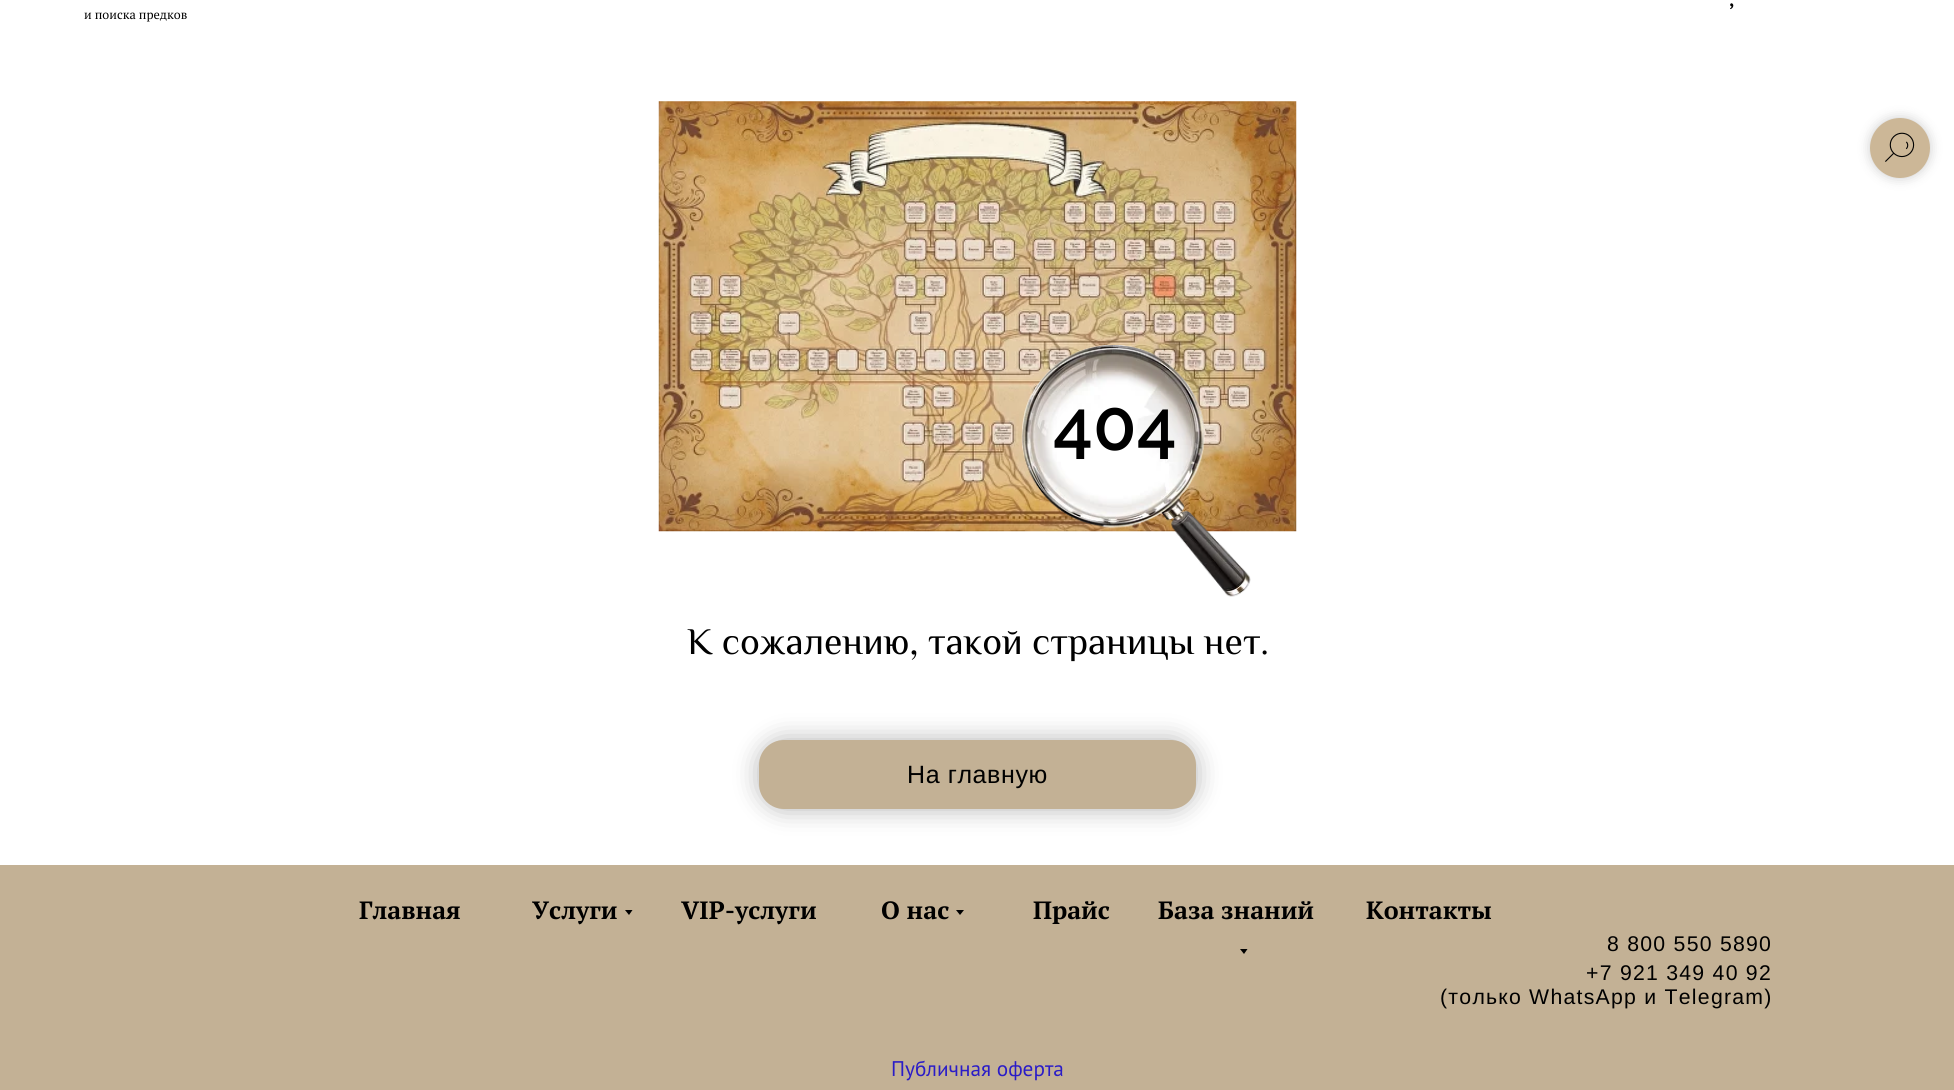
#include <cairo.h>
#include <math.h>
#include <stddef.h>


static void spaced_text(cairo_t *cr, double x, double y, const char *s, double letter, double word) {
    cairo_move_to(cr, x, y);
    while (*s) {
        char ch[5] = {0};
        int n = 0;
        do ch[n++] = *s++; while ((*s & 0xC0) == 0x80);
        cairo_show_text(cr, ch);
        cairo_rel_move_to(cr, letter + word * (*ch == ' '), 0);
    }
}

static void round_rect(cairo_t *cr, double x, double y, double w, double h, double r) {
    cairo_new_sub_path(cr);
    cairo_arc(cr, x + w - r, y + h - r, r, 0, M_PI / 2);
    cairo_arc(cr, x + r, y + h - r, r, M_PI / 2, M_PI);
    cairo_arc(cr, x + r, y + r, r, M_PI, 1.5 * M_PI);
    cairo_arc(cr, x + w - r, y + r, r, 1.5 * M_PI, 2 * M_PI);
    cairo_close_path(cr);
}

static void shadow(cairo_t *cr, double x, double y, double w, double h, double r, double blur, double alpha) {
    cairo_push_group_with_content(cr, CAIRO_CONTENT_ALPHA);
    cairo_set_operator(cr, CAIRO_OPERATOR_SOURCE);
    for (int i = 15; i >= -15 && fmin(w, h) + blur * i / 3 > 0; i -= 2) {
        double e = blur * i / 6;
        cairo_set_source_rgba(cr, 0, 0, 0, alpha * erfc((i - 1) / 8.5) / 2);
        round_rect(cr, x - e, y - e, w + 2 * e, h + 2 * e, fmax(0, fmin(r + e + blur * .6, fmin(w, h) / 2 + e)));
        cairo_fill(cr);
    }
    cairo_pattern_t *soft = cairo_pop_group(cr);
    cairo_mask(cr, soft);
    cairo_pattern_destroy(soft);
}

static void picture(cairo_t *cr, const char *path, double x, double y, double w, double h) {
    cairo_surface_t *image = cairo_image_surface_create_from_png(path);
    cairo_save(cr);
    cairo_set_source_surface(cr, image, x, y);
    cairo_rectangle(cr, x, y, w, h);
    cairo_fill(cr);
    cairo_restore(cr);
    cairo_surface_destroy(image);
}

int main(void) {
    cairo_surface_t *surface = cairo_image_surface_create(CAIRO_FORMAT_RGB24, 1954, 1090);
    cairo_t *cr = cairo_create(surface);
    cairo_font_options_t *options = cairo_font_options_create();
    cairo_font_options_set_hint_metrics(options, CAIRO_HINT_METRICS_OFF);
    cairo_font_options_set_hint_style(options, CAIRO_HINT_STYLE_NONE);
    cairo_set_font_options(cr, options);
    cairo_set_miter_limit(cr, 4);
    cairo_set_source_rgb(cr, 1, 1, 1);
    cairo_paint(cr);
    cairo_select_font_face(cr, "PT Serif", CAIRO_FONT_SLANT_NORMAL, CAIRO_FONT_WEIGHT_BOLD);
    cairo_set_font_size(cr, 18);
    cairo_set_source_rgb(cr, 0, 0, 0);
    cairo_move_to(cr, 1729, 6);
    cairo_show_text(cr, ",");
    cairo_select_font_face(cr, "PT Serif", CAIRO_FONT_SLANT_NORMAL, CAIRO_FONT_WEIGHT_NORMAL);
    cairo_set_font_size(cr, 12.5);
    cairo_move_to(cr, 84, 19);
    cairo_show_text(cr, "и поиска предков");
    cairo_set_source_rgb(cr, 0, 0, 0);
    shadow(cr, 1870, 118, 60, 60, 30, 6, 0.2);
    cairo_set_source_rgb(cr, 0.8, 0.718, 0.592);
    cairo_arc(cr, 1900, 148, 30, 0, 2 * M_PI);
    cairo_fill(cr);
    picture(cr, "img1.png", 1885, 132, 30, 30);
    picture(cr, "img2.png", 658, 101, 639, 431);
    picture(cr, "img3.png", 1021, 345, 230, 252);
    cairo_select_font_face(cr, "Raleway SemiBold", CAIRO_FONT_SLANT_NORMAL, CAIRO_FONT_WEIGHT_NORMAL);
    cairo_set_font_size(cr, 71);
    cairo_set_source_rgb(cr, 0, 0, 0);
    cairo_move_to(cr, 1053, 450);
    cairo_show_text(cr, "404");
    cairo_select_font_face(cr, "El Messiri", CAIRO_FONT_SLANT_NORMAL, CAIRO_FONT_WEIGHT_NORMAL);
    cairo_set_font_size(cr, 37.5);
    cairo_move_to(cr, 687, 654);
    cairo_show_text(cr, "К сожалению, такой страницы нет.");
    cairo_set_source_rgb(cr, 0, 0, 0);
    shadow(cr, 759, 740, 437, 69, 25, 12.5, 0.3);
    cairo_set_source_rgb(cr, 0.765, 0.694, 0.584);
    round_rect(cr, 759, 740, 437, 69, 25);
    cairo_fill(cr);
    cairo_select_font_face(cr, "Liberation Sans", CAIRO_FONT_SLANT_NORMAL, CAIRO_FONT_WEIGHT_NORMAL);
    cairo_set_font_size(cr, 25);
    cairo_set_source_rgb(cr, 0, 0, 0);
    spaced_text(cr, 907, 783, "На главную", 0.6, 0);
    cairo_set_source_rgb(cr, 0.765, 0.694, 0.584);
    cairo_rectangle(cr, 0, 865, 1954, 225);
    cairo_fill(cr);
    cairo_select_font_face(cr, "PT Serif", CAIRO_FONT_SLANT_NORMAL, CAIRO_FONT_WEIGHT_BOLD);
    cairo_set_source_rgb(cr, 0, 0, 0);
    cairo_move_to(cr, 359, 919);
    cairo_show_text(cr, "Главная");
    cairo_move_to(cr, 532, 919);
    cairo_show_text(cr, "Услуги");
    cairo_new_path(cr);
    cairo_move_to(cr, 625, 910);
    cairo_line_to(cr, 632.5, 910);
    cairo_line_to(cr, 629, 915);
    cairo_close_path(cr);
    cairo_fill(cr);
    cairo_move_to(cr, 681, 919);
    cairo_show_text(cr, "VIP-услуги");
    cairo_move_to(cr, 881, 919);
    cairo_show_text(cr, "О нас");
    cairo_new_path(cr);
    cairo_move_to(cr, 956, 910);
    cairo_line_to(cr, 964, 910);
    cairo_line_to(cr, 960, 915);
    cairo_close_path(cr);
    cairo_fill(cr);
    cairo_move_to(cr, 1033, 919);
    cairo_show_text(cr, "Прайс");
    cairo_move_to(cr, 1158, 919);
    cairo_show_text(cr, "База знаний");
    cairo_new_path(cr);
    cairo_move_to(cr, 1240, 949);
    cairo_line_to(cr, 1247.5, 949);
    cairo_line_to(cr, 1244, 954);
    cairo_close_path(cr);
    cairo_fill(cr);
    cairo_move_to(cr, 1366, 919);
    cairo_show_text(cr, "Контакты");
    cairo_select_font_face(cr, "Liberation Sans", CAIRO_FONT_SLANT_NORMAL, CAIRO_FONT_WEIGHT_NORMAL);
    cairo_set_font_size(cr, 21.25);
    spaced_text(cr, 1607, 951, "8 800 550 5890", 1.25, 0);
    spaced_text(cr, 1440, 1004, "(только WhatsApp и Telegram)", 1.25, 0);
    spaced_text(cr, 1586, 980, "+7 921 349 40 92", 1.25, 0);
    cairo_select_font_face(cr, "PT Sans", CAIRO_FONT_SLANT_NORMAL, CAIRO_FONT_WEIGHT_NORMAL);
    cairo_set_source_rgb(cr, 0.165, 0.11, 0.78);
    cairo_move_to(cr, 891, 1076);
    cairo_show_text(cr, "Публичная оферта");
    cairo_surface_write_to_png(surface, "page.png");
    cairo_font_options_destroy(options);
    cairo_destroy(cr);
    cairo_surface_destroy(surface);
    return 0;
}
